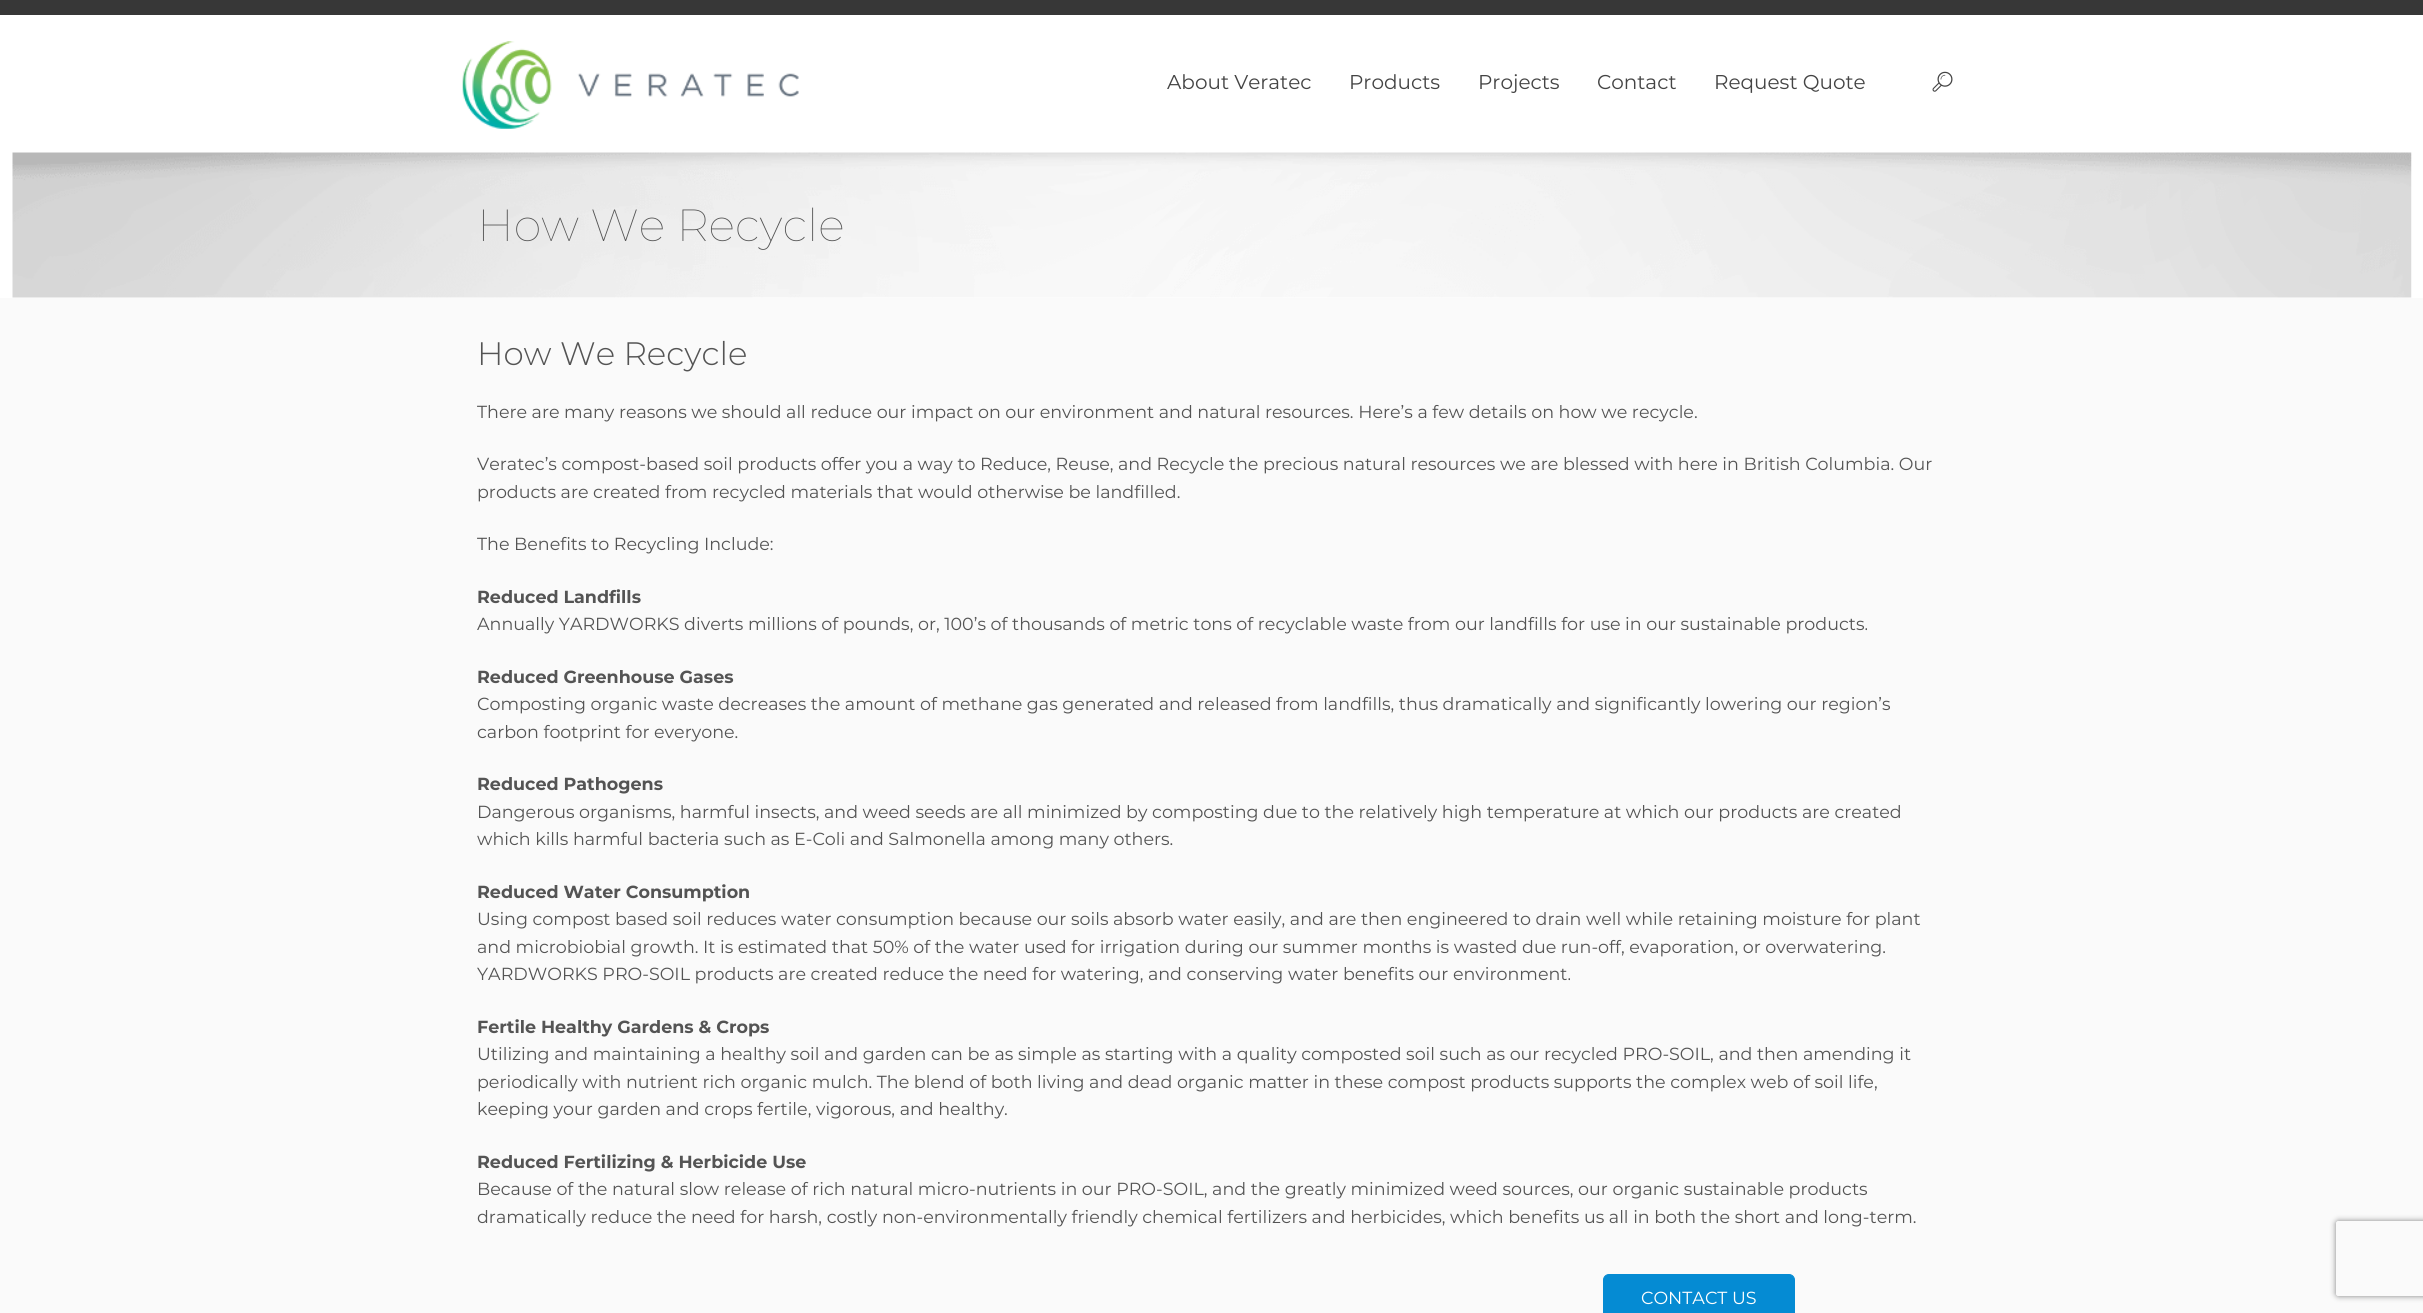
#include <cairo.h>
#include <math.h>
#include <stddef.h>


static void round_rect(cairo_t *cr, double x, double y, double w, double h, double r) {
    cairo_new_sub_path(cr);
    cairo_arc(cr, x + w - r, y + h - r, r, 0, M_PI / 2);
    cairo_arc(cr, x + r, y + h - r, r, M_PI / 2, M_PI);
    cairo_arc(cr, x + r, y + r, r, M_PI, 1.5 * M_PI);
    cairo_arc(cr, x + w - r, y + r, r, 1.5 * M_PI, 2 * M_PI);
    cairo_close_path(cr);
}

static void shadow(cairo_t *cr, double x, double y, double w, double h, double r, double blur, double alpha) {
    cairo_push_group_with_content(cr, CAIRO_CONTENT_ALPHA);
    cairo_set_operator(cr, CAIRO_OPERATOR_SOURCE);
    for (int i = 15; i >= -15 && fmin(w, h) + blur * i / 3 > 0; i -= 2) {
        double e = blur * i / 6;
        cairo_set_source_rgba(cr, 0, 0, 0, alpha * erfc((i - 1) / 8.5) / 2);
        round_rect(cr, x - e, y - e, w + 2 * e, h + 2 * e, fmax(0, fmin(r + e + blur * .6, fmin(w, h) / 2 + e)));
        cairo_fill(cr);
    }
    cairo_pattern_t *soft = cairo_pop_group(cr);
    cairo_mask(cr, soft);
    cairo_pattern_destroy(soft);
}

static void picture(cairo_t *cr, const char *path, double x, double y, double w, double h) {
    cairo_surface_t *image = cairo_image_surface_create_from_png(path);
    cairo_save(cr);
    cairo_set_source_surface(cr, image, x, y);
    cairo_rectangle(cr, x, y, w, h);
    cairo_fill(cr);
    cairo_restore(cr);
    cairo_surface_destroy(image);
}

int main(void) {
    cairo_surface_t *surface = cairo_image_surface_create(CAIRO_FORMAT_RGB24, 2423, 1313);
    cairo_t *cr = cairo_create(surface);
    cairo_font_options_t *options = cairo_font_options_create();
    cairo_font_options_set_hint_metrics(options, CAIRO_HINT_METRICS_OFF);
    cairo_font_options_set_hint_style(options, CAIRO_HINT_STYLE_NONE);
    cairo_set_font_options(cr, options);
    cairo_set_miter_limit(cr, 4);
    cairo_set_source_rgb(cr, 0.98, 0.98, 0.98);
    cairo_paint(cr);
    cairo_set_source_rgb(cr, 0.216, 0.216, 0.216);
    cairo_rectangle(cr, 0, 0, 2423, 15);
    cairo_fill(cr);
    cairo_set_source_rgb(cr, 1, 1, 1);
    cairo_rectangle(cr, 0, 15, 2423, 283);
    cairo_fill(cr);
    picture(cr, "img1.png", 462, 41, 337, 88);
    cairo_select_font_face(cr, "Montserrat", CAIRO_FONT_SLANT_NORMAL, CAIRO_FONT_WEIGHT_NORMAL);
    cairo_set_font_size(cr, 20);
    cairo_set_source_rgb(cr, 0.267, 0.267, 0.267);
    cairo_move_to(cr, 1167, 89);
    cairo_show_text(cr, "About Veratec");
    cairo_move_to(cr, 1349, 89);
    cairo_show_text(cr, "Products");
    cairo_move_to(cr, 1478, 89);
    cairo_show_text(cr, "Projects");
    cairo_move_to(cr, 1597, 89);
    cairo_show_text(cr, "Contact");
    cairo_move_to(cr, 1714, 89);
    cairo_show_text(cr, "Request Quote");
    picture(cr, "img2.png", 1932, 71, 21, 21);
    picture(cr, "img3.png", 12, 152, 2400, 146);
    cairo_select_font_face(cr, "Montserrat Thin", CAIRO_FONT_SLANT_NORMAL, CAIRO_FONT_WEIGHT_NORMAL);
    cairo_set_font_size(cr, 45);
    cairo_set_source_rgb(cr, 0.329, 0.329, 0.329);
    cairo_move_to(cr, 477, 241);
    cairo_show_text(cr, "How We Recycle");
    cairo_select_font_face(cr, "Montserrat Light", CAIRO_FONT_SLANT_NORMAL, CAIRO_FONT_WEIGHT_NORMAL);
    cairo_set_font_size(cr, 32.5);
    cairo_move_to(cr, 477, 365);
    cairo_show_text(cr, "How We Recycle");
    cairo_select_font_face(cr, "Montserrat", CAIRO_FONT_SLANT_NORMAL, CAIRO_FONT_WEIGHT_NORMAL);
    cairo_set_font_size(cr, 17.5);
    cairo_move_to(cr, 477, 418);
    cairo_show_text(cr, "There are many reasons we should all reduce our impact on our environment and natural resources. Here’s a few details on how we recycle.");
    cairo_move_to(cr, 477, 470);
    cairo_show_text(cr, "Veratec’s compost-based soil products offer you a way to Reduce, Reuse, and Recycle the precious natural resources we are blessed with here in British Columbia. Our");
    cairo_move_to(cr, 477, 498);
    cairo_show_text(cr, "products are created from recycled materials that would otherwise be landfilled.");
    cairo_move_to(cr, 477, 550);
    cairo_show_text(cr, "The Benefits to Recycling Include:");
    cairo_select_font_face(cr, "Montserrat", CAIRO_FONT_SLANT_NORMAL, CAIRO_FONT_WEIGHT_BOLD);
    cairo_move_to(cr, 477, 603);
    cairo_show_text(cr, "Reduced Landfills");
    cairo_select_font_face(cr, "Montserrat", CAIRO_FONT_SLANT_NORMAL, CAIRO_FONT_WEIGHT_NORMAL);
    cairo_move_to(cr, 477, 630);
    cairo_show_text(cr, "Annually YARDWORKS diverts millions of pounds, or, 100’s of thousands of metric tons of recyclable waste from our landfills for use in our sustainable products.");
    cairo_select_font_face(cr, "Montserrat", CAIRO_FONT_SLANT_NORMAL, CAIRO_FONT_WEIGHT_BOLD);
    cairo_move_to(cr, 477, 683);
    cairo_show_text(cr, "Reduced Greenhouse Gases");
    cairo_select_font_face(cr, "Montserrat", CAIRO_FONT_SLANT_NORMAL, CAIRO_FONT_WEIGHT_NORMAL);
    cairo_move_to(cr, 477, 710);
    cairo_show_text(cr, "Composting organic waste decreases the amount of methane gas generated and released from landfills, thus dramatically and significantly lowering our region’s");
    cairo_move_to(cr, 477, 738);
    cairo_show_text(cr, "carbon footprint for everyone.");
    cairo_select_font_face(cr, "Montserrat", CAIRO_FONT_SLANT_NORMAL, CAIRO_FONT_WEIGHT_BOLD);
    cairo_move_to(cr, 477, 790);
    cairo_show_text(cr, "Reduced Pathogens");
    cairo_select_font_face(cr, "Montserrat", CAIRO_FONT_SLANT_NORMAL, CAIRO_FONT_WEIGHT_NORMAL);
    cairo_move_to(cr, 477, 818);
    cairo_show_text(cr, "Dangerous organisms, harmful insects, and weed seeds are all minimized by composting due to the relatively high temperature at which our products are created");
    cairo_move_to(cr, 477, 845);
    cairo_show_text(cr, "which kills harmful bacteria such as E-Coli and Salmonella among many others.");
    cairo_select_font_face(cr, "Montserrat", CAIRO_FONT_SLANT_NORMAL, CAIRO_FONT_WEIGHT_BOLD);
    cairo_move_to(cr, 477, 898);
    cairo_show_text(cr, "Reduced Water Consumption");
    cairo_select_font_face(cr, "Montserrat", CAIRO_FONT_SLANT_NORMAL, CAIRO_FONT_WEIGHT_NORMAL);
    cairo_move_to(cr, 477, 925);
    cairo_show_text(cr, "Using compost based soil reduces water consumption because our soils absorb water easily, and are then engineered to drain well while retaining moisture for plant");
    cairo_move_to(cr, 477, 953);
    cairo_show_text(cr, "and microbiobial growth. It is estimated that 50% of the water used for irrigation during our summer months is wasted due run-off, evaporation, or overwatering.");
    cairo_move_to(cr, 477, 980);
    cairo_show_text(cr, "YARDWORKS PRO-SOIL products are created reduce the need for watering, and conserving water benefits our environment.");
    cairo_select_font_face(cr, "Montserrat", CAIRO_FONT_SLANT_NORMAL, CAIRO_FONT_WEIGHT_BOLD);
    cairo_move_to(cr, 477, 1033);
    cairo_show_text(cr, "Fertile Healthy Gardens & Crops");
    cairo_select_font_face(cr, "Montserrat", CAIRO_FONT_SLANT_NORMAL, CAIRO_FONT_WEIGHT_NORMAL);
    cairo_move_to(cr, 477, 1060);
    cairo_show_text(cr, "Utilizing and maintaining a healthy soil and garden can be as simple as starting with a quality composted soil such as our recycled PRO-SOIL, and then amending it");
    cairo_move_to(cr, 477, 1088);
    cairo_show_text(cr, "periodically with nutrient rich organic mulch. The blend of both living and dead organic matter in these compost products supports the complex web of soil life,");
    cairo_move_to(cr, 477, 1115);
    cairo_show_text(cr, "keeping your garden and crops fertile, vigorous, and healthy.");
    cairo_select_font_face(cr, "Montserrat", CAIRO_FONT_SLANT_NORMAL, CAIRO_FONT_WEIGHT_BOLD);
    cairo_move_to(cr, 477, 1168);
    cairo_show_text(cr, "Reduced Fertilizing & Herbicide Use");
    cairo_select_font_face(cr, "Montserrat", CAIRO_FONT_SLANT_NORMAL, CAIRO_FONT_WEIGHT_NORMAL);
    cairo_move_to(cr, 477, 1195);
    cairo_show_text(cr, "Because of the natural slow release of rich natural micro-nutrients in our PRO-SOIL, and the greatly minimized weed sources, our organic sustainable products");
    cairo_move_to(cr, 477, 1223);
    cairo_show_text(cr, "dramatically reduce the need for harsh, costly non-environmentally friendly chemical fertilizers and herbicides, which benefits us all in both the short and long-term.");
    cairo_set_source_rgb(cr, 0.02, 0.545, 0.827);
    round_rect(cr, 1603.5, 1274.5, 191, 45, 5.5);
    cairo_fill_preserve(cr);
    cairo_set_line_width(cr, 1);
    cairo_stroke(cr);
    cairo_set_source_rgb(cr, 1, 1, 1);
    cairo_move_to(cr, 1641, 1304);
    cairo_show_text(cr, "CONTACT US");
    cairo_save(cr);
    cairo_set_fill_rule(cr, CAIRO_FILL_RULE_EVEN_ODD);
    cairo_new_path(cr);
    cairo_move_to(cr, 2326, 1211);
    cairo_line_to(cr, 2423, 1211);
    cairo_line_to(cr, 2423, 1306);
    cairo_line_to(cr, 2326, 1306);
    cairo_close_path(cr);
    cairo_move_to(cr, 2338.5, 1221);
    cairo_line_to(cr, 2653.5, 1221);
    cairo_curve_to(cr, 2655, 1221, 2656, 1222, 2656, 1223.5);
    cairo_line_to(cr, 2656, 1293.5);
    cairo_curve_to(cr, 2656, 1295, 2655, 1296, 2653.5, 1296);
    cairo_line_to(cr, 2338.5, 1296);
    cairo_curve_to(cr, 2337, 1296, 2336, 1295, 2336, 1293.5);
    cairo_line_to(cr, 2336, 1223.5);
    cairo_curve_to(cr, 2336, 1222, 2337, 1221, 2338.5, 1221);
    cairo_close_path(cr);
    cairo_clip(cr);
    cairo_set_source_rgb(cr, 0.502, 0.502, 0.502);
    shadow(cr, 2336, 1221, 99, 75, 2.5, 3, 1);
    cairo_restore(cr);
    cairo_surface_write_to_png(surface, "page.png");
    cairo_font_options_destroy(options);
    cairo_destroy(cr);
    cairo_surface_destroy(surface);
    return 0;
}
